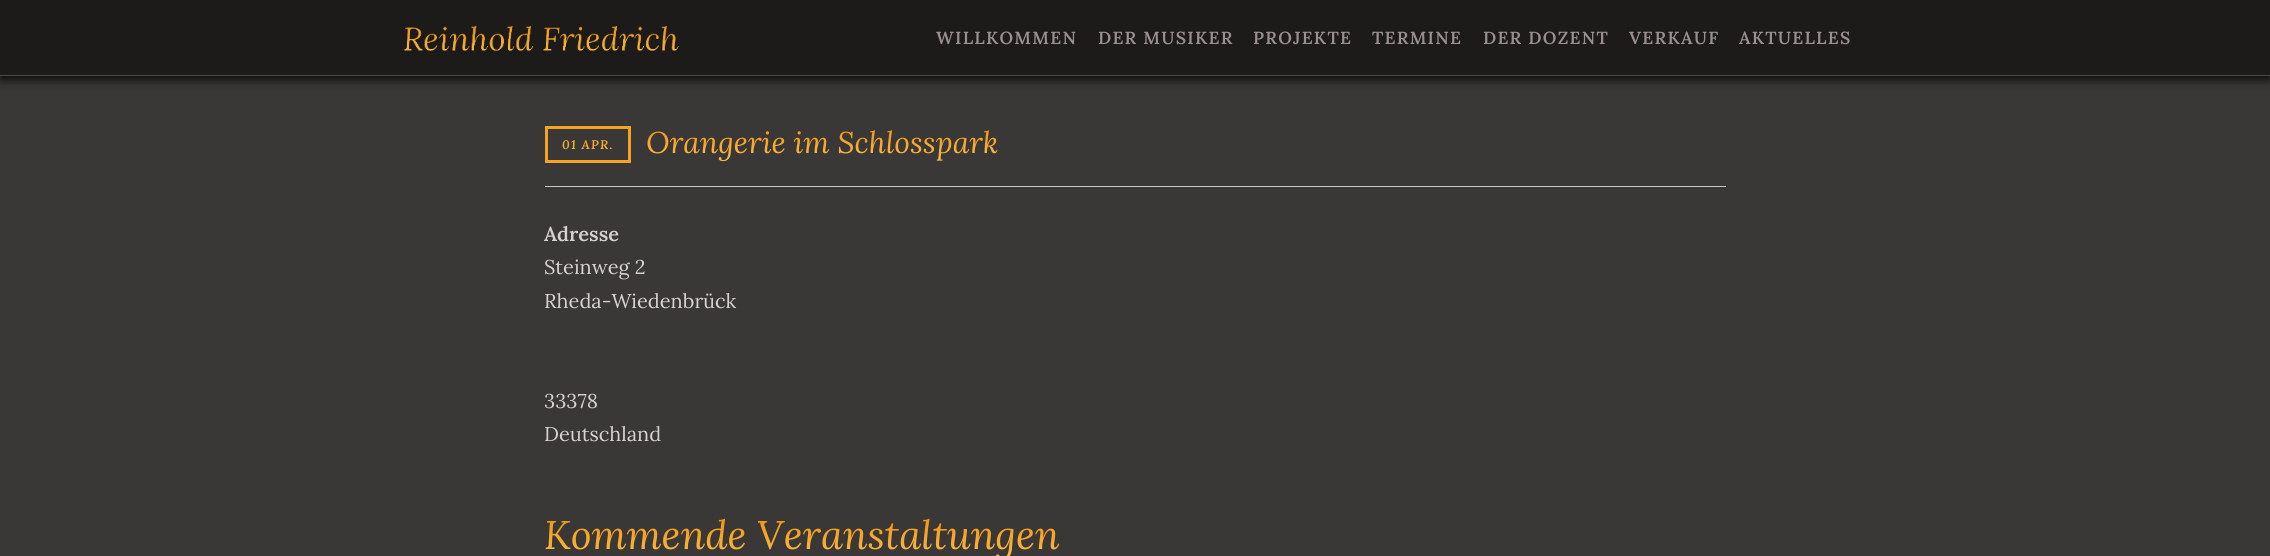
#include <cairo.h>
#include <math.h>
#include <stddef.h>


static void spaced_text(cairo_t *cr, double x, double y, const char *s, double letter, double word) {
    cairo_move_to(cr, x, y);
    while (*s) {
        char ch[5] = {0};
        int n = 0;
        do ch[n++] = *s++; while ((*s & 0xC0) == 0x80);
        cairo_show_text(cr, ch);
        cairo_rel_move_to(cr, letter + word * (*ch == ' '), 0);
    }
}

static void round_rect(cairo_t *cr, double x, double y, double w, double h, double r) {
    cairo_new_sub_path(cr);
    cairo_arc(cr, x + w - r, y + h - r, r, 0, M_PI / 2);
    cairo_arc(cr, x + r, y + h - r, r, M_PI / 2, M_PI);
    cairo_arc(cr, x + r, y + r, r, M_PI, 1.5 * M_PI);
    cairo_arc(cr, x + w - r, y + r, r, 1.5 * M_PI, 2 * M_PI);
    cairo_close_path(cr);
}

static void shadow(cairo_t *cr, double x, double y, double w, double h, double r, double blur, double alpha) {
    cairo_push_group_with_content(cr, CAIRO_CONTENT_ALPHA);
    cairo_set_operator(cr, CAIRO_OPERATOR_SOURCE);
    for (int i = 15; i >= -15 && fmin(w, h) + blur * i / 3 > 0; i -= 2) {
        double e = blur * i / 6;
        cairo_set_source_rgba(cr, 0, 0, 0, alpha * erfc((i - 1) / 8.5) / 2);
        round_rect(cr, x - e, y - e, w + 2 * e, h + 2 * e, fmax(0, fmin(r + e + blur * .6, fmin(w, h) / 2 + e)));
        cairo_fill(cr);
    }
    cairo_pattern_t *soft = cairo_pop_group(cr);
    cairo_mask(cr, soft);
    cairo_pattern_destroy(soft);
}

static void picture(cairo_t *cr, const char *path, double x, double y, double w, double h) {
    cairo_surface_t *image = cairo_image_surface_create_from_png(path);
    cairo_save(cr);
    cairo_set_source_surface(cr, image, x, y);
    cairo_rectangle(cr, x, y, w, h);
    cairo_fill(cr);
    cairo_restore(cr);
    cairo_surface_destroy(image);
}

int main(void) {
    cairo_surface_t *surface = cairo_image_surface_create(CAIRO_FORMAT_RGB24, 2270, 556);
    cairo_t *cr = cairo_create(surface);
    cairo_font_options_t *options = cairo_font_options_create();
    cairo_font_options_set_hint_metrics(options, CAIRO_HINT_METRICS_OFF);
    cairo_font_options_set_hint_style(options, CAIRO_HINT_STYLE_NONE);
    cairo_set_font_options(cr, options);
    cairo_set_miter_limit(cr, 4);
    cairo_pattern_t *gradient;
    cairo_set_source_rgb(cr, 0.227, 0.216, 0.216);
    cairo_paint(cr);
    cairo_set_source_rgb(cr, 0, 0, 0);
    shadow(cr, 0, 4, 2270, 76, 0, 5, 0.8);
    cairo_set_source_rgb(cr, 0.114, 0.102, 0.102);
    cairo_rectangle(cr, 0, 0, 2270, 75);
    cairo_fill(cr);
    cairo_set_source_rgb(cr, 0.333, 0.267, 0.267);
    cairo_rectangle(cr, 0, 75, 2270, 1);
    cairo_fill(cr);
    picture(cr, "img1.png", 403, 26, 276, 25);
    cairo_select_font_face(cr, "Lora SemiBold", CAIRO_FONT_SLANT_NORMAL, CAIRO_FONT_WEIGHT_NORMAL);
    cairo_set_font_size(cr, 17.5);
    cairo_set_source_rgb(cr, 0.604, 0.565, 0.565);
    spaced_text(cr, 936, 44, "WILLKOMMEN", 1.25, 0);
    spaced_text(cr, 1098, 44, "DER MUSIKER", 1.25, 0);
    spaced_text(cr, 1253, 44, "PROJEKTE", 1.25, 0);
    spaced_text(cr, 1372, 44, "TERMINE", 1.25, 0);
    spaced_text(cr, 1483, 44, "DER DOZENT", 1.25, 0);
    spaced_text(cr, 1629, 44, "VERKAUF", 1.25, 0);
    spaced_text(cr, 1739, 44, "AKTUELLES", 1.25, 0);
    cairo_rectangle(cr, 546.5, 127.5, 83, 34);
    cairo_set_source_rgb(cr, 0.961, 0.639, 0.141);
    cairo_set_line_width(cr, 3);
    cairo_stroke(cr);
    cairo_select_font_face(cr, "Lora SemiBold", CAIRO_FONT_SLANT_ITALIC, CAIRO_FONT_WEIGHT_NORMAL);
    cairo_set_font_size(cr, 12.5);
    gradient = cairo_pattern_create_linear(771, 122, 771, 168);
    cairo_pattern_add_color_stop_rgba(gradient, 0, 0.941, 0.561, 0.027, 1);
    cairo_pattern_add_color_stop_rgba(gradient, 1, 1, 0.773, 0.337, 1);
    cairo_set_source(cr, gradient);
    cairo_pattern_destroy(gradient);
    spaced_text(cr, 562, 149, "01 APR.", 1.25, 0);
    cairo_select_font_face(cr, "Lora", CAIRO_FONT_SLANT_ITALIC, CAIRO_FONT_WEIGHT_NORMAL);
    cairo_set_font_size(cr, 30);
    cairo_move_to(cr, 646, 153);
    cairo_show_text(cr, "Orangerie im Schlosspark");
    cairo_set_source_rgb(cr, 0.812, 0.765, 0.765);
    cairo_rectangle(cr, 545, 186, 1181, 1);
    cairo_fill(cr);
    cairo_select_font_face(cr, "Lora SemiBold", CAIRO_FONT_SLANT_NORMAL, CAIRO_FONT_WEIGHT_NORMAL);
    cairo_set_font_size(cr, 20);
    cairo_set_source_rgb(cr, 0.843, 0.824, 0.824);
    cairo_move_to(cr, 544, 241);
    cairo_show_text(cr, "Adresse");
    cairo_select_font_face(cr, "Lora", CAIRO_FONT_SLANT_NORMAL, CAIRO_FONT_WEIGHT_NORMAL);
    cairo_move_to(cr, 544, 274);
    cairo_show_text(cr, "Steinweg 2");
    cairo_move_to(cr, 544, 308);
    cairo_show_text(cr, "Rheda-Wiedenbrück");
    cairo_move_to(cr, 544, 408);
    cairo_show_text(cr, "33378");
    cairo_move_to(cr, 544, 441);
    cairo_show_text(cr, "Deutschland");
    cairo_select_font_face(cr, "Lora", CAIRO_FONT_SLANT_ITALIC, CAIRO_FONT_WEIGHT_NORMAL);
    cairo_set_font_size(cr, 40);
    gradient = cairo_pattern_create_linear(1135, 511, 1135, 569);
    cairo_pattern_add_color_stop_rgba(gradient, 0, 0.941, 0.561, 0.027, 1);
    cairo_pattern_add_color_stop_rgba(gradient, 1, 1, 0.773, 0.337, 1);
    cairo_set_source(cr, gradient);
    cairo_pattern_destroy(gradient);
    cairo_move_to(cr, 544, 549);
    cairo_show_text(cr, "Kommende Veranstaltungen");
    cairo_surface_write_to_png(surface, "page.png");
    cairo_font_options_destroy(options);
    cairo_destroy(cr);
    cairo_surface_destroy(surface);
    return 0;
}
